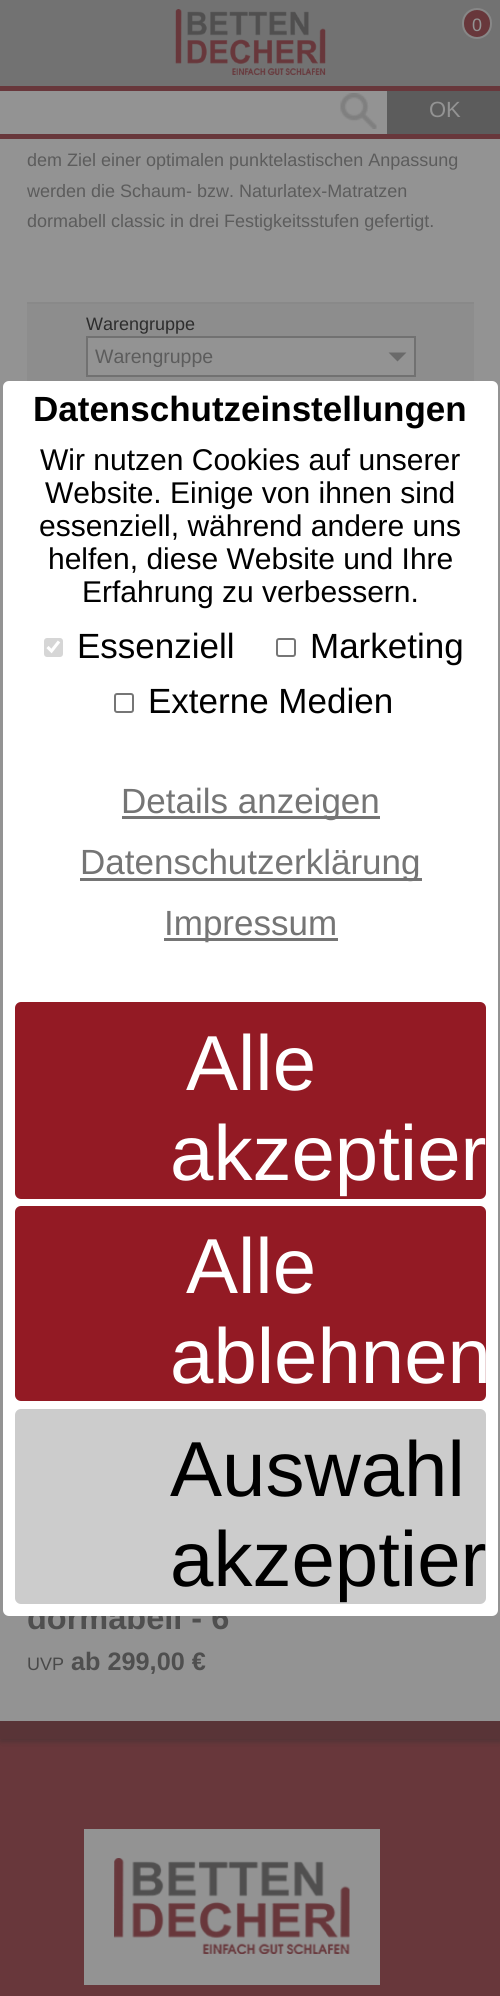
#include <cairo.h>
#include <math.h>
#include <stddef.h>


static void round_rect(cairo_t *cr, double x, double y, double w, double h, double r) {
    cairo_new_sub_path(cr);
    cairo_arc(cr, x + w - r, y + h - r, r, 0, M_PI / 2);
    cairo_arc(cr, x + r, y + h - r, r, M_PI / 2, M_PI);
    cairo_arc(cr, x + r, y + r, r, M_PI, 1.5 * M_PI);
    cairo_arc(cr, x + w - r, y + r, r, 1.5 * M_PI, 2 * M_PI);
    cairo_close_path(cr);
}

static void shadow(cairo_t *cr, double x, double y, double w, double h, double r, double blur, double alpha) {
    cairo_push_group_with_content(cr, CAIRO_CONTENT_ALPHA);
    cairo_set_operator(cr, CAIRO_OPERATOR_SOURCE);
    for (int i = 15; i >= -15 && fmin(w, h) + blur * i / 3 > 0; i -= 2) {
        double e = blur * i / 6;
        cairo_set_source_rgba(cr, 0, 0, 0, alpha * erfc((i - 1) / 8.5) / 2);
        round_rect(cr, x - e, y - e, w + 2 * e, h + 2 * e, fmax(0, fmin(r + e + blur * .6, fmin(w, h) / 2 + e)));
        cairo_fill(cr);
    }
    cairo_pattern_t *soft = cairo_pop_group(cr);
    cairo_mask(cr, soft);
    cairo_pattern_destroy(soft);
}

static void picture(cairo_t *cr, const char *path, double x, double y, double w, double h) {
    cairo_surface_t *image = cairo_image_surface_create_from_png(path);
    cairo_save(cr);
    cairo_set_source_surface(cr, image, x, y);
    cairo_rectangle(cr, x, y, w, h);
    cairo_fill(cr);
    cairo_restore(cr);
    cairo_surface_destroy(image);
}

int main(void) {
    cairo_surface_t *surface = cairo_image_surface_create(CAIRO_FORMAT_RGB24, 500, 1996);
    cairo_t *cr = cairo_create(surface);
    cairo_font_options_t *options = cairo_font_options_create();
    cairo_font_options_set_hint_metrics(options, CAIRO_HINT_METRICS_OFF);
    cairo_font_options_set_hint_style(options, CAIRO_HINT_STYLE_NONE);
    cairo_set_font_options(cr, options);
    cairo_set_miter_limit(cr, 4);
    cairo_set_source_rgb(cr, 0.576, 0.576, 0.576);
    cairo_paint(cr);
    cairo_set_source_rgb(cr, 0.408, 0.216, 0.231);
    cairo_rectangle(cr, 0, 86, 500, 5);
    cairo_fill(cr);
    cairo_set_source_rgb(cr, 0.447, 0.447, 0.447);
    cairo_rectangle(cr, 0, 0, 500, 86);
    cairo_fill(cr);
    picture(cr, "img1.png", 175, 9, 151, 66);
    cairo_set_source_rgb(cr, 0.408, 0.216, 0.231);
    round_rect(cr, 463, 9, 28, 29, 14);
    cairo_fill_preserve(cr);
    cairo_set_source_rgb(cr, 0.529, 0.529, 0.529);
    cairo_stroke(cr);
    cairo_select_font_face(cr, "Liberation Sans", CAIRO_FONT_SLANT_NORMAL, CAIRO_FONT_WEIGHT_NORMAL);
    cairo_set_font_size(cr, 18);
    cairo_set_source_rgb(cr, 0.576, 0.576, 0.576);
    cairo_move_to(cr, 472, 31);
    cairo_show_text(cr, "0");
    cairo_set_source_rgb(cr, 0.408, 0.216, 0.231);
    cairo_rectangle(cr, 0, 134, 500, 5);
    cairo_fill(cr);
    picture(cr, "img2.png", 340, 93, 37, 36);
    cairo_set_source_rgb(cr, 0.361, 0.361, 0.361);
    cairo_rectangle(cr, 387, 91, 113, 43);
    cairo_fill(cr);
    cairo_set_font_size(cr, 22);
    cairo_set_source_rgb(cr, 0.576, 0.576, 0.576);
    cairo_move_to(cr, 429, 117);
    cairo_show_text(cr, "OK");
    cairo_set_font_size(cr, 18);
    cairo_set_source_rgb(cr, 0.361, 0.361, 0.361);
    cairo_move_to(cr, 27, 166);
    cairo_show_text(cr, "dem Ziel einer optimalen punktelastischen Anpassung");
    cairo_move_to(cr, 27, 197);
    cairo_show_text(cr, "werden die Schaum- bzw. Naturlatex-Matratzen");
    cairo_move_to(cr, 27, 227);
    cairo_show_text(cr, "dormabell classic in drei Festigkeitsstufen gefertigt.");
    cairo_set_source_rgb(cr, 0.553, 0.553, 0.553);
    cairo_rectangle(cr, 27, 304, 447, 77);
    cairo_fill(cr);
    cairo_set_source_rgb(cr, 0.537, 0.537, 0.537);
    cairo_rectangle(cr, 27, 302, 447, 2);
    cairo_fill(cr);
    cairo_set_source_rgb(cr, 0.176, 0.176, 0.176);
    cairo_move_to(cr, 86, 330);
    cairo_show_text(cr, "Warengruppe");
    cairo_set_source_rgb(cr, 0.576, 0.576, 0.576);
    cairo_rectangle(cr, 87, 337, 328, 39);
    cairo_fill_preserve(cr);
    cairo_set_source_rgb(cr, 0.443, 0.443, 0.443);
    cairo_stroke(cr);
    cairo_set_font_size(cr, 19.5);
    cairo_set_source_rgb(cr, 0.361, 0.361, 0.361);
    cairo_move_to(cr, 95, 363);
    cairo_show_text(cr, "Warengruppe");
    cairo_set_source_rgb(cr, 0.416, 0.416, 0.416);
    cairo_new_path(cr);
    cairo_move_to(cr, 388.5, 352.5);
    cairo_line_to(cr, 406.5, 352.5);
    cairo_line_to(cr, 397.5, 361.5);
    cairo_close_path(cr);
    cairo_fill(cr);
    cairo_select_font_face(cr, "Liberation Sans", CAIRO_FONT_SLANT_NORMAL, CAIRO_FONT_WEIGHT_BOLD);
    cairo_set_font_size(cr, 32.5);
    cairo_set_source_rgb(cr, 0.31, 0.31, 0.31);
    cairo_move_to(cr, 27, 1629);
    cairo_show_text(cr, "dormabell - 6");
    cairo_select_font_face(cr, "Liberation Sans", CAIRO_FONT_SLANT_NORMAL, CAIRO_FONT_WEIGHT_NORMAL);
    cairo_set_font_size(cr, 18);
    cairo_set_source_rgb(cr, 0.286, 0.286, 0.286);
    cairo_move_to(cr, 27, 1670);
    cairo_show_text(cr, "UVP");
    cairo_select_font_face(cr, "Liberation Sans", CAIRO_FONT_SLANT_NORMAL, CAIRO_FONT_WEIGHT_BOLD);
    cairo_set_font_size(cr, 25.25);
    cairo_set_source_rgb(cr, 0.31, 0.31, 0.31);
    cairo_move_to(cr, 71, 1670);
    cairo_show_text(cr, "ab 299,00 €");
    cairo_set_source_rgb(cr, 1, 1, 1);
    round_rect(cr, 4, 382, 493, 1233, 5);
    cairo_fill_preserve(cr);
    cairo_stroke(cr);
    cairo_set_font_size(cr, 35);
    cairo_set_source_rgb(cr, 0, 0, 0);
    cairo_move_to(cr, 33, 421);
    cairo_show_text(cr, "Datenschutzeinstellungen");
    cairo_select_font_face(cr, "Liberation Sans", CAIRO_FONT_SLANT_NORMAL, CAIRO_FONT_WEIGHT_NORMAL);
    cairo_set_font_size(cr, 30);
    cairo_move_to(cr, 40, 470);
    cairo_show_text(cr, "Wir nutzen Cookies auf unserer");
    cairo_move_to(cr, 45, 503);
    cairo_show_text(cr, "Website. Einige von ihnen sind");
    cairo_move_to(cr, 39, 536);
    cairo_show_text(cr, "essenziell, während andere uns");
    cairo_move_to(cr, 48, 569);
    cairo_show_text(cr, "helfen, diese Website und Ihre");
    cairo_move_to(cr, 82, 602);
    cairo_show_text(cr, "Erfahrung zu verbessern.");
    cairo_set_source_rgb(cr, 0.839, 0.839, 0.839);
    round_rect(cr, 44, 638, 19, 19, 3);
    cairo_fill(cr);
    cairo_new_path(cr);
    cairo_move_to(cr, 47.5, 647);
    cairo_line_to(cr, 51.5, 651);
    cairo_line_to(cr, 59, 641.5);
    cairo_set_source_rgb(cr, 1, 1, 1);
    cairo_set_line_width(cr, 3.1);
    cairo_stroke(cr);
    cairo_set_font_size(cr, 35);
    cairo_set_source_rgb(cr, 0, 0, 0);
    cairo_move_to(cr, 77, 658);
    cairo_show_text(cr, "Essenziell");
    round_rect(cr, 277, 639, 18, 17, 2);
    cairo_set_source_rgb(cr, 0.463, 0.463, 0.463);
    cairo_set_line_width(cr, 2);
    cairo_stroke(cr);
    cairo_set_source_rgb(cr, 0, 0, 0);
    cairo_move_to(cr, 310, 658);
    cairo_show_text(cr, "Marketing");
    round_rect(cr, 115, 694, 18, 18, 2);
    cairo_set_source_rgb(cr, 0.463, 0.463, 0.463);
    cairo_stroke(cr);
    cairo_set_source_rgb(cr, 0, 0, 0);
    cairo_move_to(cr, 148, 713);
    cairo_show_text(cr, "Externe Medien");
    cairo_set_source_rgb(cr, 0.459, 0.459, 0.459);
    cairo_rectangle(cr, 122, 816, 258, 3);
    cairo_fill(cr);
    cairo_move_to(cr, 121, 813);
    cairo_show_text(cr, "Details anzeigen");
    cairo_rectangle(cr, 80, 878, 342, 3);
    cairo_fill(cr);
    cairo_move_to(cr, 80, 874);
    cairo_show_text(cr, "Datenschutzerklärung");
    cairo_rectangle(cr, 164, 938, 174, 3);
    cairo_fill(cr);
    cairo_move_to(cr, 164, 935);
    cairo_show_text(cr, "Impressum");
    cairo_set_source_rgb(cr, 0.576, 0.102, 0.141);
    round_rect(cr, 15, 1002, 471, 197, 6);
    cairo_fill(cr);
    cairo_set_font_size(cr, 78);
    cairo_set_source_rgb(cr, 1, 1, 1);
    cairo_move_to(cr, 186, 1090);
    cairo_show_text(cr, "Alle");
    cairo_move_to(cr, 170, 1180);
    cairo_show_text(cr, "akzeptier");
    cairo_set_source_rgb(cr, 0.576, 0.102, 0.141);
    round_rect(cr, 15, 1206, 471, 195, 6);
    cairo_fill(cr);
    cairo_set_source_rgb(cr, 1, 1, 1);
    cairo_move_to(cr, 186, 1293);
    cairo_show_text(cr, "Alle");
    cairo_move_to(cr, 170, 1383);
    cairo_show_text(cr, "ablehnen");
    cairo_set_source_rgb(cr, 0.8, 0.8, 0.8);
    round_rect(cr, 15, 1409, 471, 195, 6);
    cairo_fill(cr);
    cairo_set_source_rgb(cr, 0, 0, 0);
    cairo_move_to(cr, 170, 1496);
    cairo_show_text(cr, "Auswahl");
    cairo_move_to(cr, 170, 1586);
    cairo_show_text(cr, "akzeptier");
    cairo_set_source_rgb(cr, 0.408, 0.216, 0.231);
    cairo_rectangle(cr, 0, 1721, 500, 275);
    cairo_fill(cr);
    cairo_save(cr);
    cairo_rectangle(cr, 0, 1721, 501, 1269);
    cairo_clip(cr);
    cairo_set_fill_rule(cr, CAIRO_FILL_RULE_EVEN_ODD);
    cairo_new_path(cr);
    cairo_move_to(cr, 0, 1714);
    cairo_line_to(cr, 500, 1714);
    cairo_line_to(cr, 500, 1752);
    cairo_line_to(cr, 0, 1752);
    cairo_close_path(cr);
    cairo_move_to(cr, 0, 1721);
    cairo_line_to(cr, 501, 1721);
    cairo_line_to(cr, 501, 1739);
    cairo_line_to(cr, 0, 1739);
    cairo_close_path(cr);
    cairo_clip(cr);
    cairo_set_source_rgb(cr, 0.176, 0.176, 0.176);
    shadow(cr, 0, 1724, 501, 18, 0, 3, 0.4);
    cairo_restore(cr);
    cairo_set_source_rgba(cr, 0.176, 0.176, 0.176, 0.25);
    cairo_rectangle(cr, 0, 1721, 500, 18);
    cairo_fill(cr);
    cairo_set_source_rgb(cr, 0.576, 0.576, 0.576);
    cairo_rectangle(cr, 84, 1829, 296, 156);
    cairo_fill(cr);
    picture(cr, "img3.png", 114, 1858, 236, 96);
    cairo_surface_write_to_png(surface, "page.png");
    cairo_font_options_destroy(options);
    cairo_destroy(cr);
    cairo_surface_destroy(surface);
    return 0;
}
